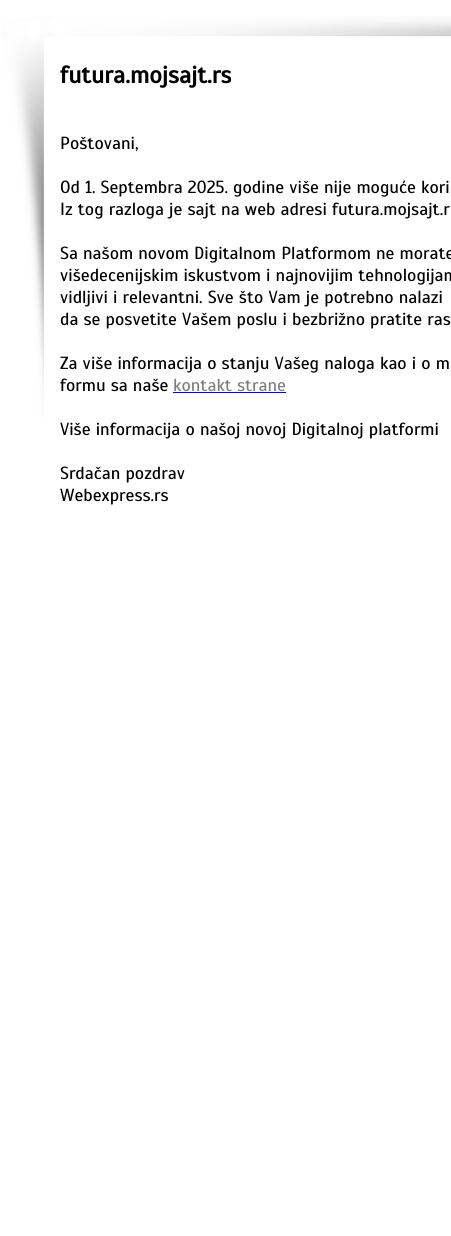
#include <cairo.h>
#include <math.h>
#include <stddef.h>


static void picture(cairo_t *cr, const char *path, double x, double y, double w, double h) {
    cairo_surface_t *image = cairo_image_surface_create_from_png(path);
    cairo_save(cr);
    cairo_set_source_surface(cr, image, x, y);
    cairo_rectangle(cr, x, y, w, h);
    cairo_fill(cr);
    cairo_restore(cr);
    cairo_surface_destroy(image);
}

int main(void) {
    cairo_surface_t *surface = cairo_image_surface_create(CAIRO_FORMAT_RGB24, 451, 1236);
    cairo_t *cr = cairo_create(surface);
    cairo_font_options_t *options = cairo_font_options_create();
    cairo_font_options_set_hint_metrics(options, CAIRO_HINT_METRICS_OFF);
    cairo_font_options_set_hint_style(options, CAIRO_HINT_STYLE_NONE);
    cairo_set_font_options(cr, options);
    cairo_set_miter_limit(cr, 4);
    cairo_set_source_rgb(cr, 1, 1, 1);
    cairo_paint(cr);
    picture(cr, "img1.png", 2, 16, 449, 402);
    cairo_select_font_face(cr, "Scada", CAIRO_FONT_SLANT_NORMAL, CAIRO_FONT_WEIGHT_BOLD);
    cairo_set_font_size(cr, 24);
    cairo_set_source_rgb(cr, 0, 0, 0);
    cairo_move_to(cr, 60, 83);
    cairo_show_text(cr, "futura.mojsajt.rs");
    cairo_select_font_face(cr, "Scada", CAIRO_FONT_SLANT_NORMAL, CAIRO_FONT_WEIGHT_NORMAL);
    cairo_set_font_size(cr, 17.6);
    cairo_move_to(cr, 60, 149);
    cairo_show_text(cr, "Poštovani,");
    cairo_move_to(cr, 60, 193);
    cairo_show_text(cr, "Od 1. Septembra 2025. godine više nije moguće kori");
    cairo_move_to(cr, 60, 215);
    cairo_show_text(cr, "Iz tog razloga je sajt na web adresi futura.mojsajt.r");
    cairo_move_to(cr, 60, 259);
    cairo_show_text(cr, "Sa našom novom Digitalnom Platformom ne morate");
    cairo_move_to(cr, 60, 281);
    cairo_show_text(cr, "višedecenijskim iskustvom i najnovijim tehnologijam");
    cairo_move_to(cr, 60, 303);
    cairo_show_text(cr, "vidljivi i relevantni. Sve što Vam je potrebno nalazi");
    cairo_move_to(cr, 60, 325);
    cairo_show_text(cr, "da se posvetite Vašem poslu i bezbrižno pratite ras");
    cairo_move_to(cr, 60, 369);
    cairo_show_text(cr, "Za više informacija o stanju Vašeg naloga kao i o m");
    cairo_move_to(cr, 60, 391);
    cairo_show_text(cr, "formu sa naše");
    cairo_set_source_rgb(cr, 0.502, 0.502, 0.502);
    cairo_move_to(cr, 173, 391);
    cairo_show_text(cr, "kontakt strane");
    cairo_set_source_rgb(cr, 0, 0, 0.933);
    cairo_rectangle(cr, 173, 392, 113, 1);
    cairo_fill(cr);
    cairo_set_source_rgb(cr, 0, 0, 0);
    cairo_move_to(cr, 60, 435);
    cairo_show_text(cr, "Više informacija o našoj novoj Digitalnoj platformi");
    cairo_move_to(cr, 60, 479);
    cairo_show_text(cr, "Srdačan pozdrav");
    cairo_move_to(cr, 60, 501);
    cairo_show_text(cr, "Webexpress.rs");
    cairo_surface_write_to_png(surface, "page.png");
    cairo_font_options_destroy(options);
    cairo_destroy(cr);
    cairo_surface_destroy(surface);
    return 0;
}
